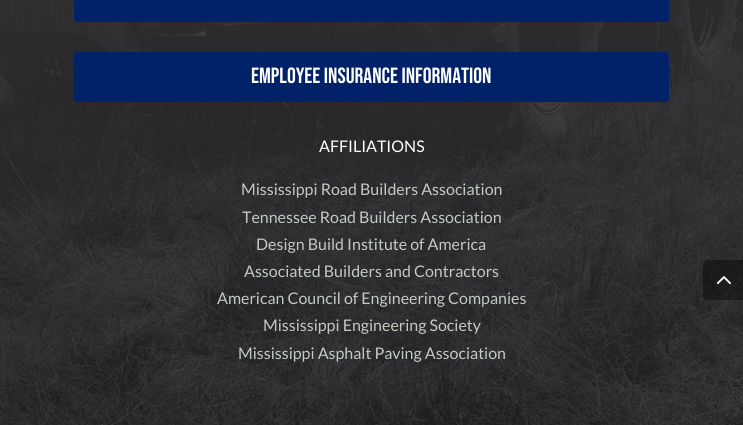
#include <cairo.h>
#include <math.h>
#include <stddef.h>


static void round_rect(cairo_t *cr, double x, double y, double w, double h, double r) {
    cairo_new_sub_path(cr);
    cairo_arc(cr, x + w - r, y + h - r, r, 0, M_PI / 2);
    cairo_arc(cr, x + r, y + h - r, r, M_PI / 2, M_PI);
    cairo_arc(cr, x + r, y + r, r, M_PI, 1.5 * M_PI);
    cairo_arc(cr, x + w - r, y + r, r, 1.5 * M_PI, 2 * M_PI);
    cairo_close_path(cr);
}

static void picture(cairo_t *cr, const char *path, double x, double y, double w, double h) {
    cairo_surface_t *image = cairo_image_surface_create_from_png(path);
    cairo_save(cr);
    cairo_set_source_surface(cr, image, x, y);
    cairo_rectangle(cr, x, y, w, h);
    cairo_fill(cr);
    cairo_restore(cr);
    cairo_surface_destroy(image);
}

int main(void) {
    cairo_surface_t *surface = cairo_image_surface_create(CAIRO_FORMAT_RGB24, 743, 425);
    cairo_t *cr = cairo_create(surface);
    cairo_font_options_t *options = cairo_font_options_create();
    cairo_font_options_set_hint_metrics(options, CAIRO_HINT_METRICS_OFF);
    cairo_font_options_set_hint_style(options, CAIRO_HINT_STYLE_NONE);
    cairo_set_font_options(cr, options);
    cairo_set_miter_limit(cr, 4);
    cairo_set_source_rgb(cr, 1, 1, 1);
    cairo_paint(cr);
    picture(cr, "img1.png", 0, 0, 743, 425);
    cairo_set_source_rgb(cr, 0.004, 0.129, 0.412);
    round_rect(cr, 74, -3, 595, 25, 3);
    cairo_fill(cr);
    round_rect(cr, 74, 52, 595, 50, 3);
    cairo_fill(cr);
    cairo_select_font_face(cr, "Bebas Neue", CAIRO_FONT_SLANT_NORMAL, CAIRO_FONT_WEIGHT_NORMAL);
    cairo_set_font_size(cr, 22);
    cairo_set_source_rgb(cr, 1, 1, 1);
    cairo_move_to(cr, 251, 83);
    cairo_show_text(cr, "Employee Insurance Information");
    cairo_select_font_face(cr, "Lato", CAIRO_FONT_SLANT_NORMAL, CAIRO_FONT_WEIGHT_NORMAL);
    cairo_set_font_size(cr, 16);
    cairo_move_to(cr, 319, 152);
    cairo_show_text(cr, "AFFILIATIONS");
    cairo_set_source_rgb(cr, 0.765, 0.788, 0.765);
    cairo_move_to(cr, 241, 195);
    cairo_show_text(cr, "Mississippi Road Builders Association");
    cairo_move_to(cr, 242, 223);
    cairo_show_text(cr, "Tennessee Road Builders Association");
    cairo_move_to(cr, 256, 250);
    cairo_show_text(cr, "Design Build Institute of America");
    cairo_move_to(cr, 244, 277);
    cairo_show_text(cr, "Associated Builders and Contractors");
    cairo_move_to(cr, 217, 304);
    cairo_show_text(cr, "American Council of Engineering Companies");
    cairo_move_to(cr, 263, 331);
    cairo_show_text(cr, "Mississippi Engineering Society");
    cairo_move_to(cr, 238, 359);
    cairo_show_text(cr, "Mississippi Asphalt Paving Association");
    cairo_set_source_rgba(cr, 0, 0, 0, 0.4);
    cairo_new_path(cr);
    cairo_move_to(cr, 708, 260);
    cairo_line_to(cr, 743, 260);
    cairo_line_to(cr, 743, 300);
    cairo_line_to(cr, 708, 300);
    cairo_curve_to(cr, 705, 300, 703, 298, 703, 295);
    cairo_line_to(cr, 703, 265);
    cairo_curve_to(cr, 703, 262, 705, 260, 708, 260);
    cairo_close_path(cr);
    cairo_fill(cr);
    picture(cr, "img2.png", 716, 276, 15, 9);
    cairo_surface_write_to_png(surface, "page.png");
    cairo_font_options_destroy(options);
    cairo_destroy(cr);
    cairo_surface_destroy(surface);
    return 0;
}
